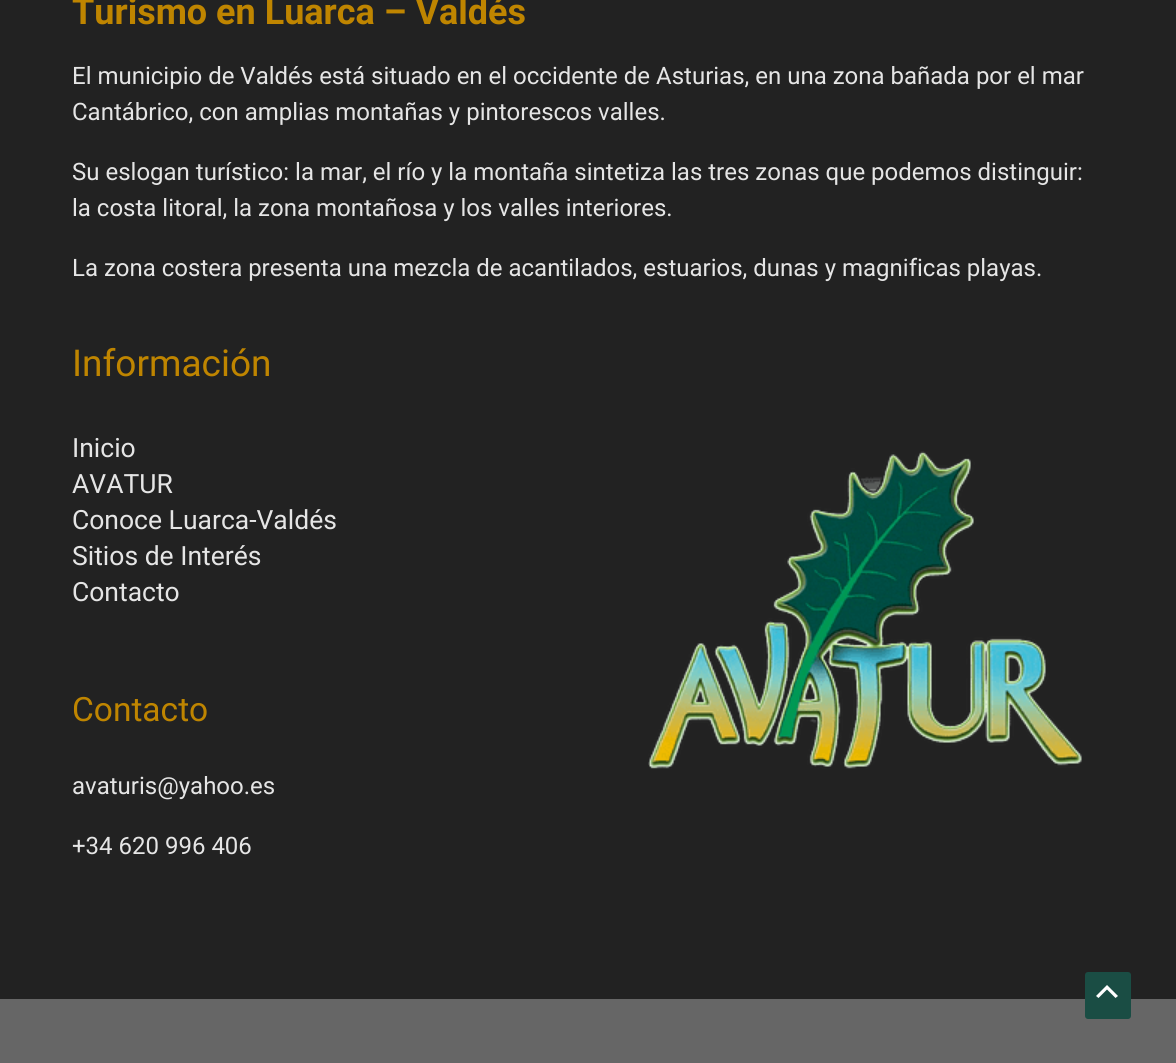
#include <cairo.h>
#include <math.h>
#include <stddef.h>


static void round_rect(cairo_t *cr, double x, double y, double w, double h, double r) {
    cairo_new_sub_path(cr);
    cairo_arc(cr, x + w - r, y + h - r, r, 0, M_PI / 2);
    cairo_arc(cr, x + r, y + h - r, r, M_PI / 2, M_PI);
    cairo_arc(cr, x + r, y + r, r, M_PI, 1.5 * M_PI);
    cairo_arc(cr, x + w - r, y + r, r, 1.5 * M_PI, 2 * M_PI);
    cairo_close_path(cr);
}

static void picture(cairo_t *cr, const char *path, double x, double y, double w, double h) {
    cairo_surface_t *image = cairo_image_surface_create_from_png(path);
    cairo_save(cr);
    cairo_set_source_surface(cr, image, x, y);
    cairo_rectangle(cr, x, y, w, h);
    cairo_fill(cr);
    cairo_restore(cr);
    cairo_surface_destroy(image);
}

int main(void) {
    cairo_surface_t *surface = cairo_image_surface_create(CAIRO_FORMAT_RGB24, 1176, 1063);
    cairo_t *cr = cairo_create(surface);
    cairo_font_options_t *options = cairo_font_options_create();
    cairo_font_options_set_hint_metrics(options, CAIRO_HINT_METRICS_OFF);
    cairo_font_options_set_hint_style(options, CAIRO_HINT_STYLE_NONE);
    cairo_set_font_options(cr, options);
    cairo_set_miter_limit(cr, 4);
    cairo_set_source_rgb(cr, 0.133, 0.133, 0.133);
    cairo_paint(cr);
    cairo_select_font_face(cr, "Roboto", CAIRO_FONT_SLANT_NORMAL, CAIRO_FONT_WEIGHT_BOLD);
    cairo_set_font_size(cr, 36);
    cairo_set_source_rgb(cr, 0.749, 0.522, 0);
    cairo_move_to(cr, 72, 24);
    cairo_show_text(cr, "Turismo en Luarca – Valdés");
    cairo_select_font_face(cr, "Roboto", CAIRO_FONT_SLANT_NORMAL, CAIRO_FONT_WEIGHT_NORMAL);
    cairo_set_font_size(cr, 24);
    cairo_set_source_rgb(cr, 0.898, 0.898, 0.898);
    cairo_move_to(cr, 72, 84);
    cairo_show_text(cr, "El municipio de Valdés está situado en el occidente de Asturias, en una zona bañada por el mar");
    cairo_move_to(cr, 72, 120);
    cairo_show_text(cr, "Cantábrico, con amplias montañas y pintorescos valles.");
    cairo_move_to(cr, 72, 180);
    cairo_show_text(cr, "Su eslogan turístico: la mar, el río y la montaña sintetiza las tres zonas que podemos distinguir:");
    cairo_move_to(cr, 72, 216);
    cairo_show_text(cr, "la costa litoral, la zona montañosa y los valles interiores.");
    cairo_move_to(cr, 72, 276);
    cairo_show_text(cr, "La zona costera presenta una mezcla de acantilados, estuarios, dunas y magnificas playas.");
    cairo_set_font_size(cr, 37);
    cairo_set_source_rgb(cr, 0.749, 0.522, 0);
    cairo_move_to(cr, 72, 376);
    cairo_show_text(cr, "Información");
    cairo_set_font_size(cr, 26.5);
    cairo_set_source_rgb(cr, 0.898, 0.898, 0.898);
    cairo_move_to(cr, 72, 457);
    cairo_show_text(cr, "Inicio");
    cairo_move_to(cr, 72, 493);
    cairo_show_text(cr, "AVATUR");
    cairo_move_to(cr, 72, 529);
    cairo_show_text(cr, "Conoce Luarca-Valdés");
    cairo_move_to(cr, 72, 565);
    cairo_show_text(cr, "Sitios de Interés");
    cairo_move_to(cr, 72, 601);
    cairo_show_text(cr, "Contacto");
    cairo_set_font_size(cr, 33.5);
    cairo_set_source_rgb(cr, 0.749, 0.522, 0);
    cairo_move_to(cr, 72, 721);
    cairo_show_text(cr, "Contacto");
    cairo_set_font_size(cr, 24);
    cairo_set_source_rgb(cr, 0.898, 0.898, 0.898);
    cairo_move_to(cr, 72, 794);
    cairo_show_text(cr, "avaturis@yahoo.es");
    cairo_move_to(cr, 72, 854);
    cairo_show_text(cr, "+34 620 996 406");
    picture(cr, "img1.png", 648, 451, 434, 318);
    cairo_set_source_rgb(cr, 0.4, 0.4, 0.4);
    cairo_rectangle(cr, 0, 999, 1176, 64);
    cairo_fill(cr);
    cairo_set_source_rgb(cr, 0.102, 0.302, 0.267);
    round_rect(cr, 1085, 972, 46, 47, 3);
    cairo_fill(cr);
    cairo_set_source_rgb(cr, 1, 1, 1);
    cairo_new_path(cr);
    cairo_move_to(cr, 1118, 996);
    cairo_line_to(cr, 1107, 985);
    cairo_line_to(cr, 1096, 996);
    cairo_line_to(cr, 1098.5, 998);
    cairo_line_to(cr, 1107, 989.5);
    cairo_line_to(cr, 1115.5, 998);
    cairo_close_path(cr);
    cairo_fill(cr);
    cairo_surface_write_to_png(surface, "page.png");
    cairo_font_options_destroy(options);
    cairo_destroy(cr);
    cairo_surface_destroy(surface);
    return 0;
}
